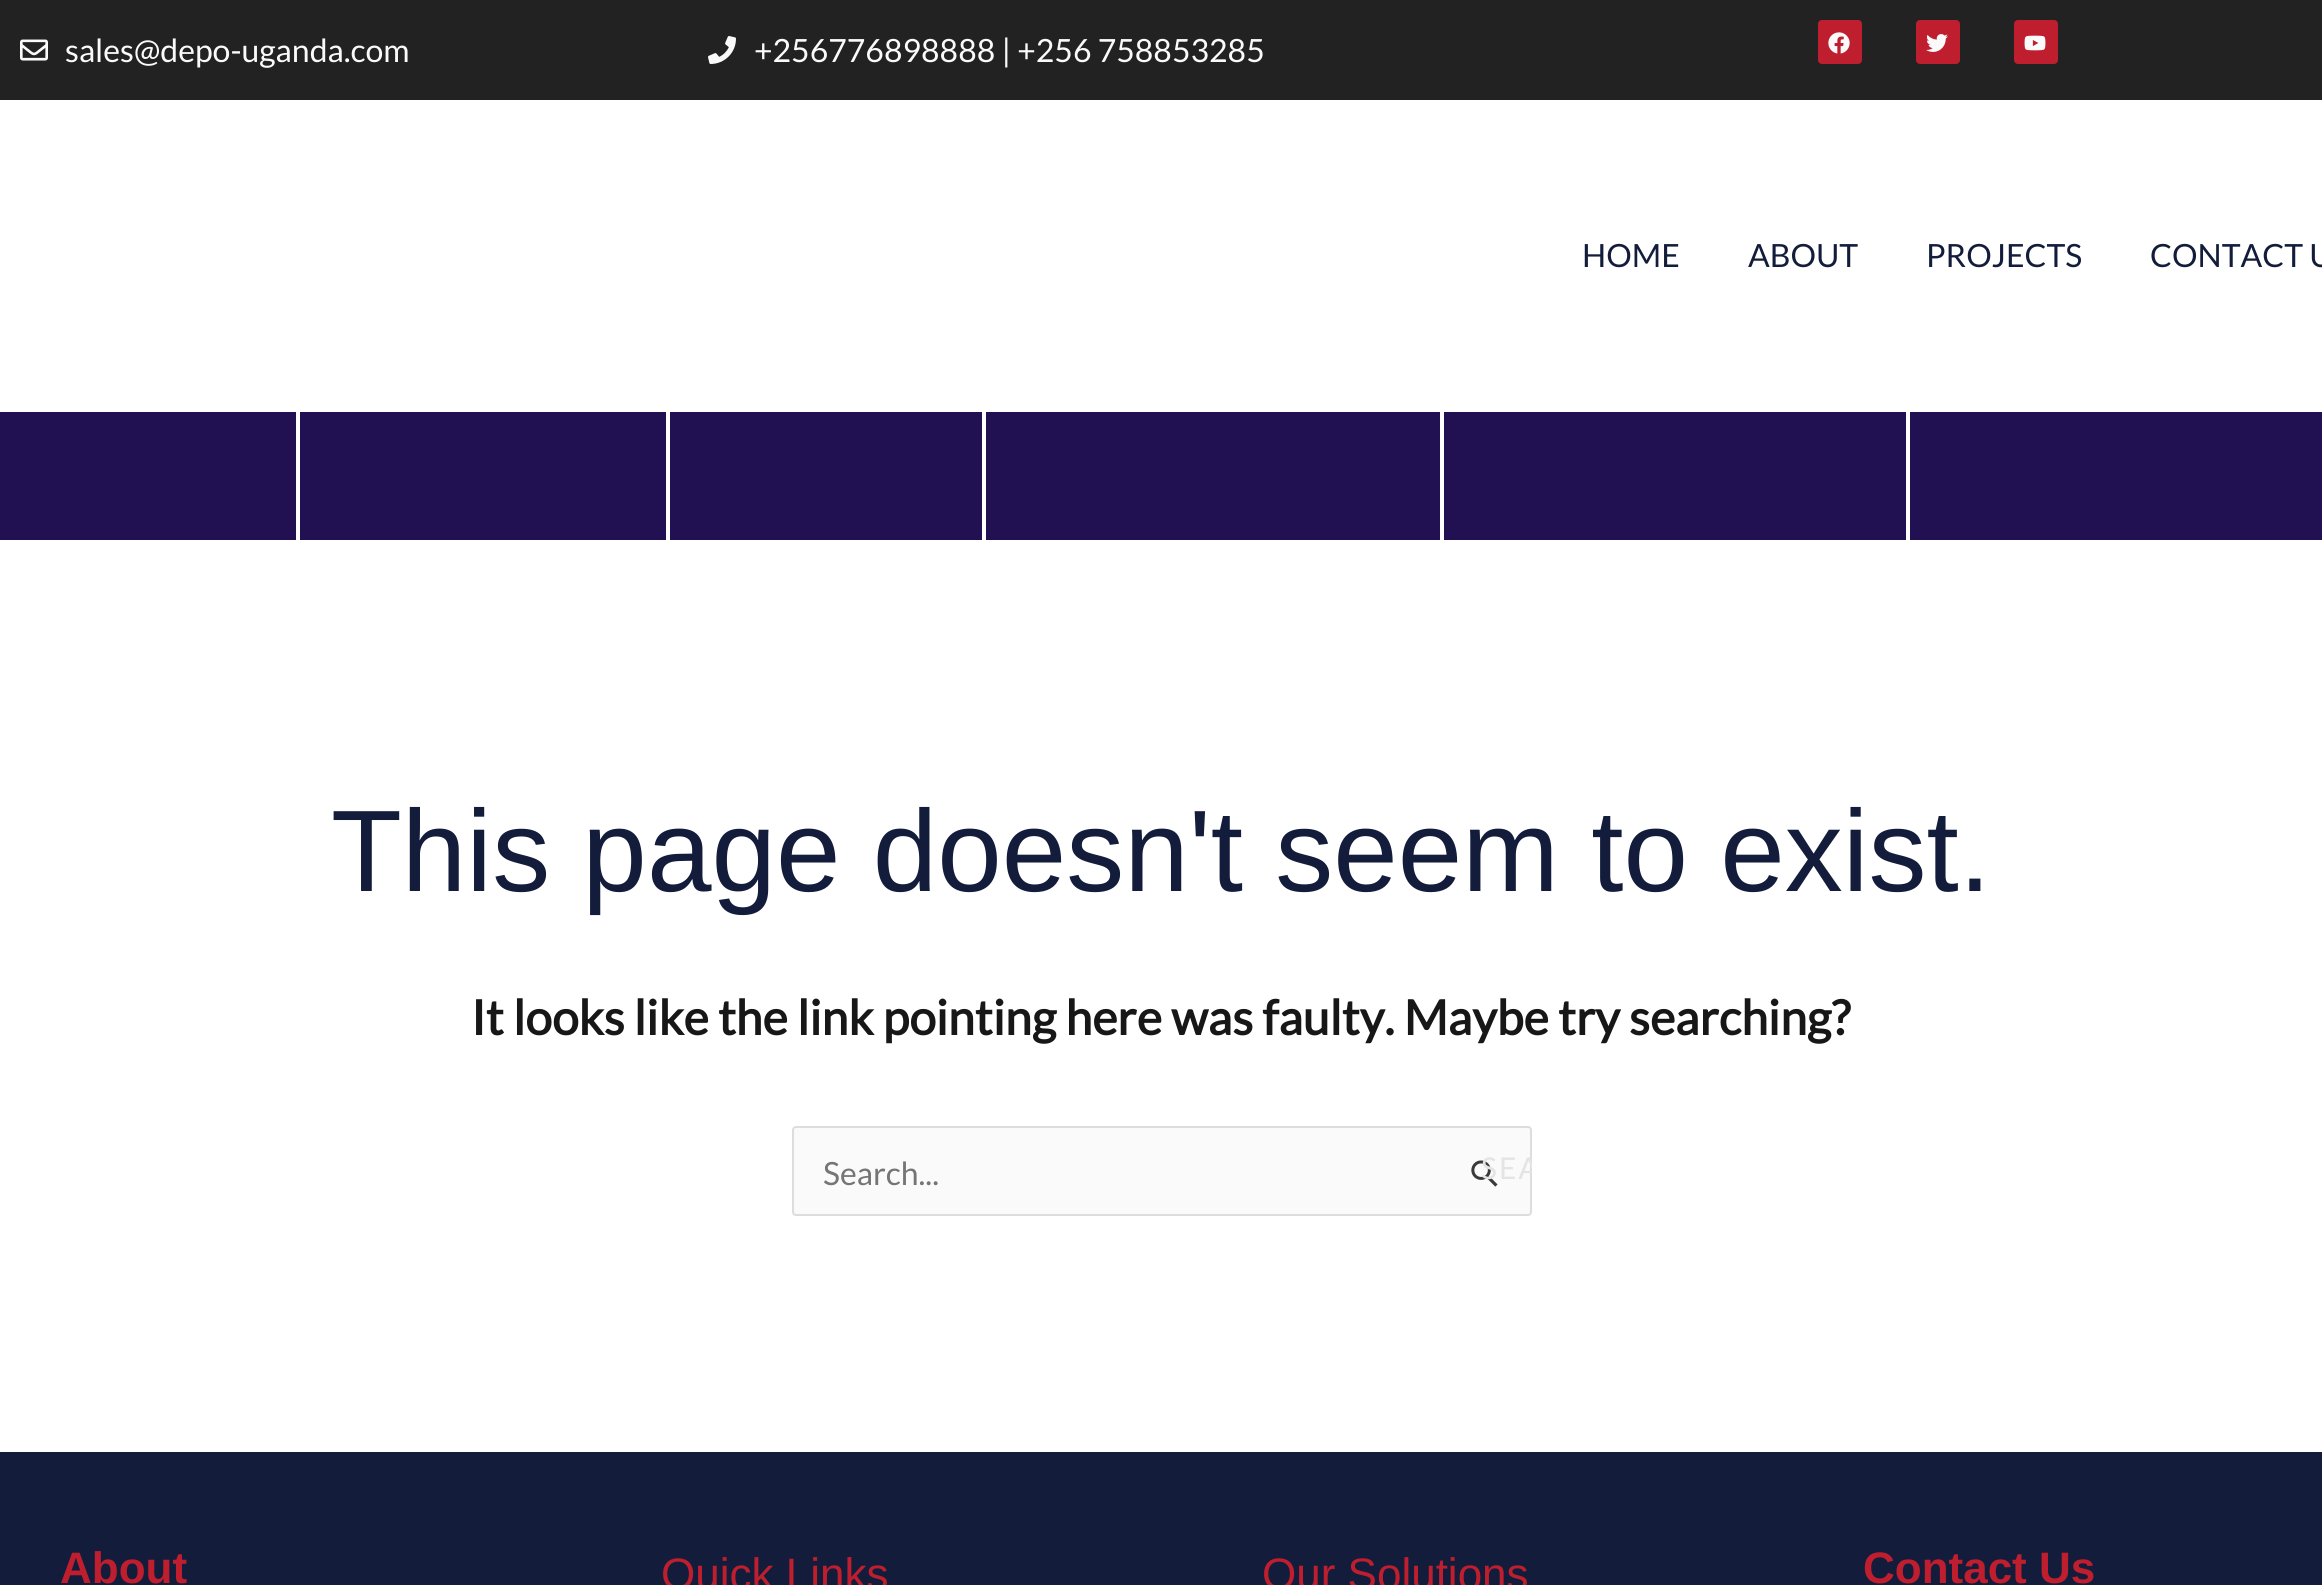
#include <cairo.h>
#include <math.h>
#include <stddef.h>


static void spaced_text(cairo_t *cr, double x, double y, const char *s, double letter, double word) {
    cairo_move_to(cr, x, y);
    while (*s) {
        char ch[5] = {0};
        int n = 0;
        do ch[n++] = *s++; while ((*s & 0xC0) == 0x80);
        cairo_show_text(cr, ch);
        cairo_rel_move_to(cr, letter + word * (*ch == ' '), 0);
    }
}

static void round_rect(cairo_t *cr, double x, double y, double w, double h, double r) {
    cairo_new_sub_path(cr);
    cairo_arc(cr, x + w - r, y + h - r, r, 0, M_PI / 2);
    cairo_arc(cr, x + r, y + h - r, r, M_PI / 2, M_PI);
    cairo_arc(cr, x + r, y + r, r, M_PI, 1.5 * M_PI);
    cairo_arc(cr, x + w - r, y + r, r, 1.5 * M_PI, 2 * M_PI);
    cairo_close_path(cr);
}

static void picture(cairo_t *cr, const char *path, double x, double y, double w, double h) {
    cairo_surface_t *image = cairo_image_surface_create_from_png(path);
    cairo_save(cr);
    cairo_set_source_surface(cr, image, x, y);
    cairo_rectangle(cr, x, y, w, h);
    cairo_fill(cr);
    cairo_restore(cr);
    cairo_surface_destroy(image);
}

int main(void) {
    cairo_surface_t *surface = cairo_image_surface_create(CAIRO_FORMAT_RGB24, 2322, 1585);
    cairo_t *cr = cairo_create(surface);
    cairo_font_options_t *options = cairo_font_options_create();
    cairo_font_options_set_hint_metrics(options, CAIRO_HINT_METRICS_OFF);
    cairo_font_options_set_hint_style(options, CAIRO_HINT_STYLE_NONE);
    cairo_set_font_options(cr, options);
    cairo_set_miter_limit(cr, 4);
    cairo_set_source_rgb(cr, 1, 1, 1);
    cairo_paint(cr);
    cairo_set_source_rgb(cr, 0.133, 0.133, 0.133);
    cairo_rectangle(cr, 0, 0, 2322, 100);
    cairo_fill(cr);
    picture(cr, "img1.png", 20, 39, 28, 22);
    cairo_select_font_face(cr, "Lato", CAIRO_FONT_SLANT_NORMAL, CAIRO_FONT_WEIGHT_NORMAL);
    cairo_set_font_size(cr, 32);
    cairo_set_source_rgb(cr, 0.98, 0.98, 0.98);
    cairo_move_to(cr, 65, 62);
    cairo_show_text(cr, "sales@depo-uganda.com");
    picture(cr, "img2.png", 708, 36, 28, 28);
    cairo_move_to(cr, 754, 62);
    cairo_show_text(cr, "+256776898888 | +256 758853285");
    cairo_set_source_rgb(cr, 0.749, 0.118, 0.18);
    round_rect(cr, 1818, 20, 44, 44, 4);
    cairo_fill(cr);
    picture(cr, "img3.png", 1828, 32, 22, 22);
    round_rect(cr, 1916, 20, 44, 44, 4);
    cairo_fill(cr);
    picture(cr, "img4.png", 1926, 34, 22, 18);
    round_rect(cr, 2014, 20, 44, 44, 4);
    cairo_fill(cr);
    picture(cr, "img5.png", 2024, 35, 22, 16);
    cairo_set_source_rgb(cr, 0.075, 0.114, 0.231);
    cairo_move_to(cr, 1582, 267);
    cairo_show_text(cr, "HOME");
    cairo_move_to(cr, 1748, 267);
    cairo_show_text(cr, "ABOUT");
    cairo_move_to(cr, 1926, 267);
    cairo_show_text(cr, "PROJECTS");
    cairo_move_to(cr, 2150, 267);
    cairo_show_text(cr, "CONTACT U");
    cairo_set_source_rgb(cr, 0.129, 0.063, 0.322);
    cairo_rectangle(cr, 0, 412, 2322, 128);
    cairo_fill(cr);
    cairo_set_source_rgb(cr, 1, 1, 1);
    cairo_rectangle(cr, 296, 412, 4, 128);
    cairo_fill(cr);
    cairo_rectangle(cr, 666, 412, 4, 128);
    cairo_fill(cr);
    cairo_rectangle(cr, 982, 412, 4, 128);
    cairo_fill(cr);
    cairo_rectangle(cr, 1440, 412, 4, 128);
    cairo_fill(cr);
    cairo_rectangle(cr, 1906, 412, 4, 128);
    cairo_fill(cr);
    cairo_select_font_face(cr, "Liberation Sans", CAIRO_FONT_SLANT_NORMAL, CAIRO_FONT_WEIGHT_NORMAL);
    cairo_set_font_size(cr, 116);
    cairo_set_source_rgb(cr, 0.075, 0.114, 0.231);
    cairo_move_to(cr, 331, 891);
    cairo_show_text(cr, "This page doesn't seem to exist.");
    cairo_select_font_face(cr, "Lato", CAIRO_FONT_SLANT_NORMAL, CAIRO_FONT_WEIGHT_BOLD);
    cairo_set_font_size(cr, 48);
    cairo_set_source_rgb(cr, 0.09, 0.09, 0.09);
    cairo_move_to(cr, 471, 1035);
    cairo_show_text(cr, "It looks like the link pointing here was faulty. Maybe try searching?");
    cairo_set_source_rgb(cr, 0.98, 0.98, 0.98);
    round_rect(cr, 793, 1127, 738, 88, 3);
    cairo_fill_preserve(cr);
    cairo_set_source_rgb(cr, 0.867, 0.867, 0.867);
    cairo_stroke(cr);
    cairo_select_font_face(cr, "Lato", CAIRO_FONT_SLANT_NORMAL, CAIRO_FONT_WEIGHT_NORMAL);
    cairo_set_font_size(cr, 32);
    cairo_set_source_rgb(cr, 0.459, 0.459, 0.459);
    cairo_move_to(cr, 823, 1185);
    cairo_show_text(cr, "Search...");
    picture(cr, "img6.png", 1471, 1160, 27, 27);
    cairo_save(cr);
    round_rect(cr, 1442, 1126, 90, 82, 4);
    cairo_clip(cr);
    cairo_set_font_size(cr, 30);
    cairo_set_source_rgb(cr, 0.894, 0.894, 0.894);
    spaced_text(cr, 1481, 1179, "SEA", 2, 0);
    cairo_restore(cr);
    cairo_set_source_rgb(cr, 0.075, 0.114, 0.231);
    cairo_rectangle(cr, 0, 1452, 2322, 133);
    cairo_fill(cr);
    cairo_select_font_face(cr, "Liberation Sans", CAIRO_FONT_SLANT_NORMAL, CAIRO_FONT_WEIGHT_BOLD);
    cairo_set_font_size(cr, 44);
    cairo_set_source_rgb(cr, 0.749, 0.118, 0.18);
    cairo_move_to(cr, 60, 1583);
    cairo_show_text(cr, "About");
    cairo_select_font_face(cr, "Liberation Sans", CAIRO_FONT_SLANT_NORMAL, CAIRO_FONT_WEIGHT_NORMAL);
    cairo_move_to(cr, 661, 1589);
    cairo_show_text(cr, "Quick Links");
    cairo_move_to(cr, 1262, 1589);
    cairo_show_text(cr, "Our Solutions");
    cairo_select_font_face(cr, "Liberation Sans", CAIRO_FONT_SLANT_NORMAL, CAIRO_FONT_WEIGHT_BOLD);
    cairo_move_to(cr, 1863, 1583);
    cairo_show_text(cr, "Contact Us");
    cairo_surface_write_to_png(surface, "page.png");
    cairo_font_options_destroy(options);
    cairo_destroy(cr);
    cairo_surface_destroy(surface);
    return 0;
}
